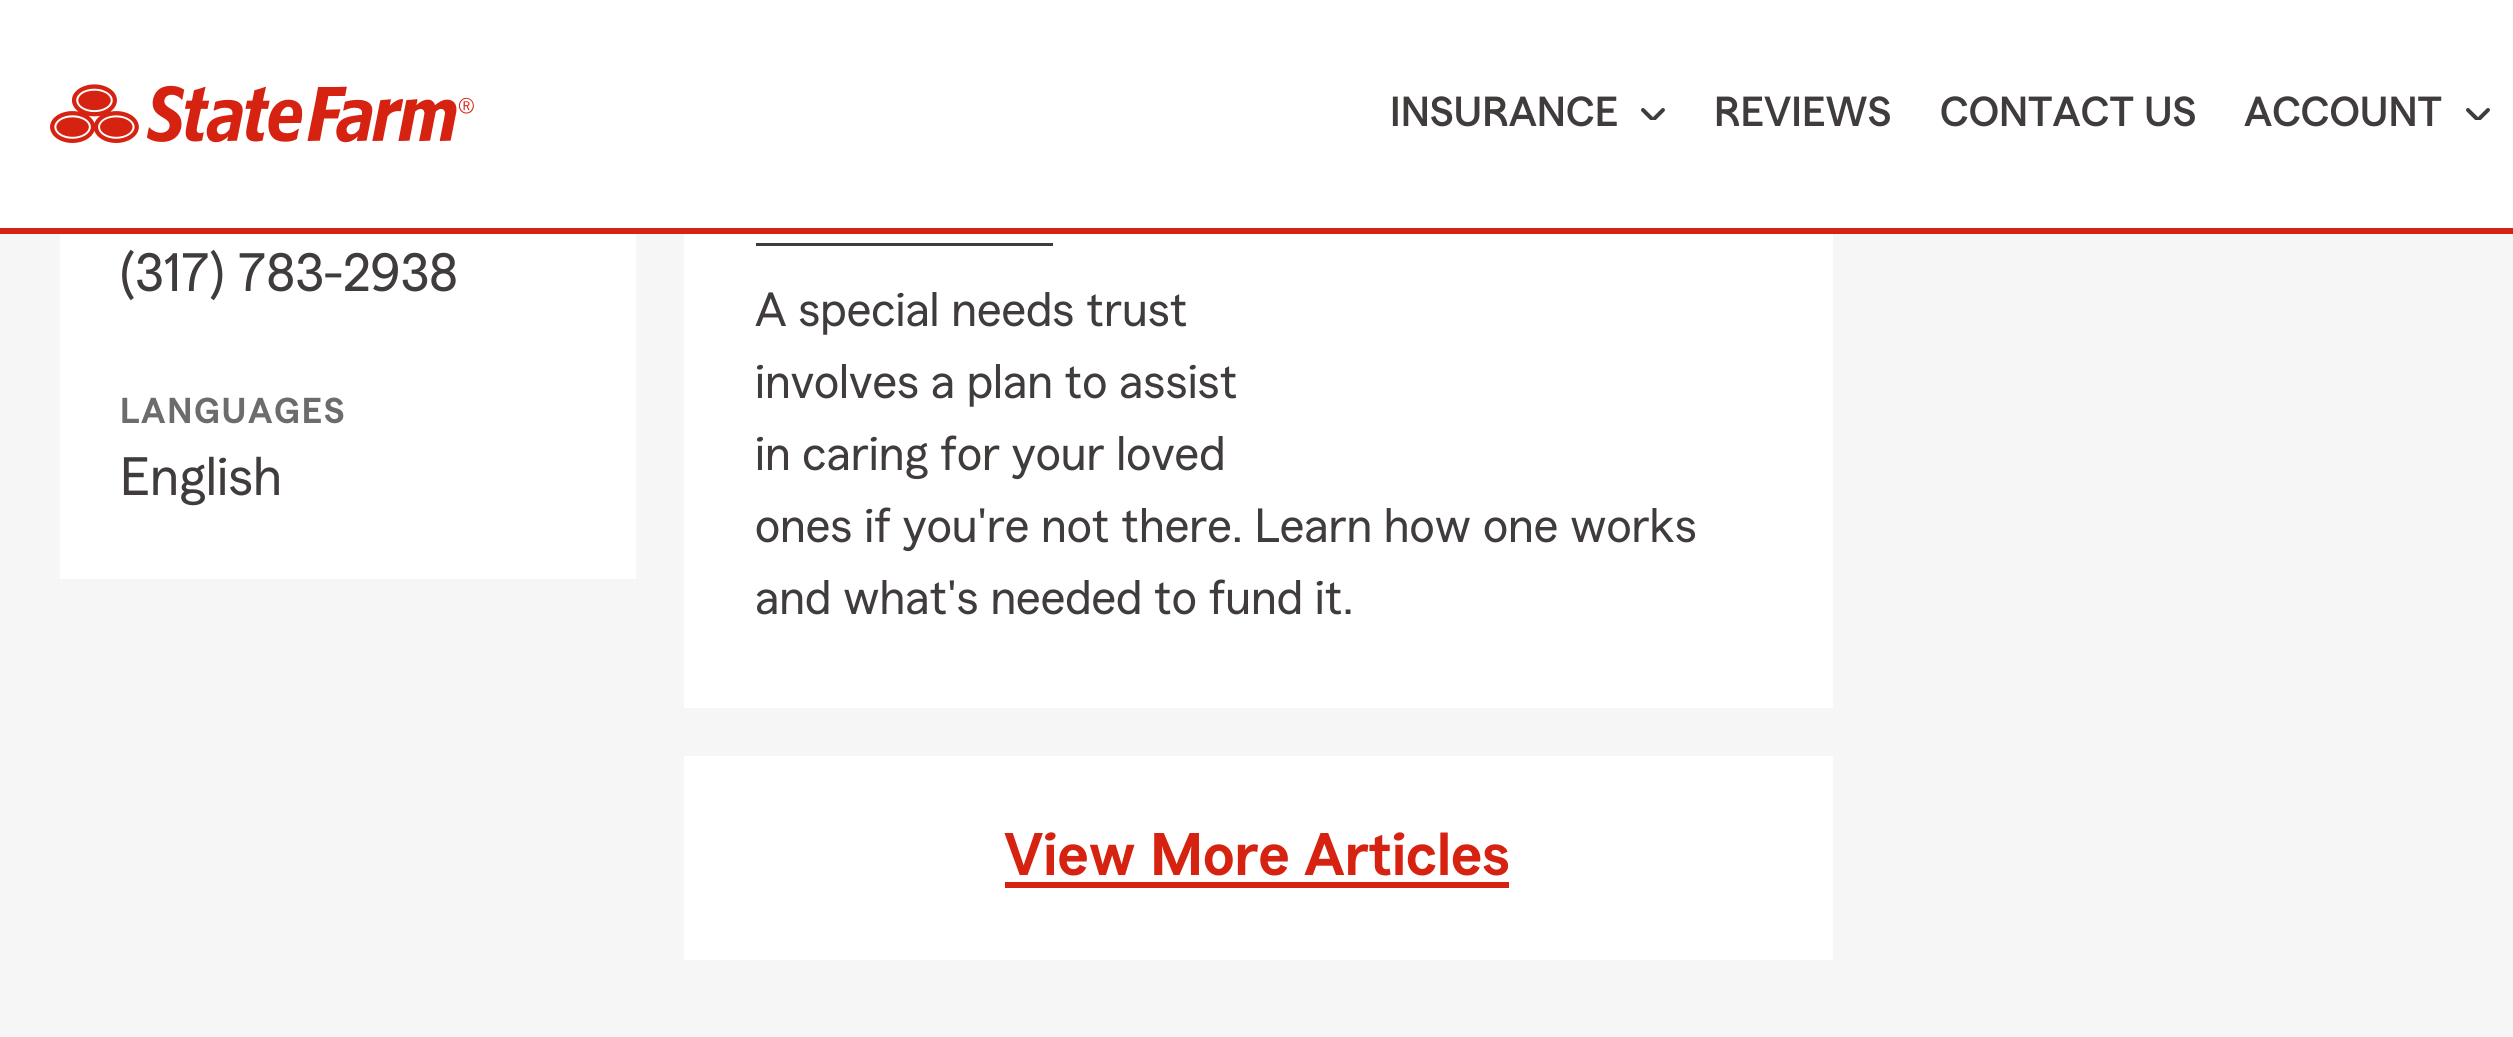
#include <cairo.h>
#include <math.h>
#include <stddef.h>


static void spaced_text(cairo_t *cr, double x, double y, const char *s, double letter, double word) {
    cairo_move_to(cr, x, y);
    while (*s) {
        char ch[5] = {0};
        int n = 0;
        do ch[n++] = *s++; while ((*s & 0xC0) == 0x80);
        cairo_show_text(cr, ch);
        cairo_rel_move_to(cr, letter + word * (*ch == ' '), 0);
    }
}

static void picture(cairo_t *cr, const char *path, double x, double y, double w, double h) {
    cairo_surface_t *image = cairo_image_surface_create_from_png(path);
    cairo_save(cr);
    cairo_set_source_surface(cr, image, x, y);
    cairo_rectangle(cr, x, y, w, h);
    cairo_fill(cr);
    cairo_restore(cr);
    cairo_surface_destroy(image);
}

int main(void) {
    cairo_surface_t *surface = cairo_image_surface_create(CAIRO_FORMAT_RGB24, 2513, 1037);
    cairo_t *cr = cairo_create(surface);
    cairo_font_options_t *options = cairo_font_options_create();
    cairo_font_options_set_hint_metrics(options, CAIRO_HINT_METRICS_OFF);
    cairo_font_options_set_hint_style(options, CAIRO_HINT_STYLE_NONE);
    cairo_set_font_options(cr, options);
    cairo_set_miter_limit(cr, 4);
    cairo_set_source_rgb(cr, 0.961, 0.961, 0.961);
    cairo_paint(cr);
    cairo_set_source_rgb(cr, 1, 1, 1);
    cairo_rectangle(cr, 0, 0, 2513, 228);
    cairo_fill(cr);
    cairo_set_source_rgb(cr, 0.839, 0.137, 0.067);
    cairo_rectangle(cr, 0, 228, 2513, 6);
    cairo_fill(cr);
    picture(cr, "img1.png", 50, 84, 424, 59);
    cairo_select_font_face(cr, "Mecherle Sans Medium", CAIRO_FONT_SLANT_NORMAL, CAIRO_FONT_WEIGHT_NORMAL);
    cairo_set_font_size(cr, 42);
    cairo_set_source_rgb(cr, 0.251, 0.235, 0.235);
    cairo_move_to(cr, 1390, 126);
    cairo_show_text(cr, "INSURANCE");
    picture(cr, "img2.png", 1641, 108, 24, 12);
    cairo_move_to(cr, 1714, 126);
    cairo_show_text(cr, "REVIEWS");
    cairo_move_to(cr, 1940, 126);
    cairo_show_text(cr, "CONTACT US");
    cairo_move_to(cr, 2244, 126);
    cairo_show_text(cr, "ACCOUNT");
    picture(cr, "img2.png", 2466, 108, 24, 12);
    cairo_set_source_rgb(cr, 1, 1, 1);
    cairo_rectangle(cr, 60, 234, 576, 345);
    cairo_fill(cr);
    cairo_select_font_face(cr, "Mecherle Sans", CAIRO_FONT_SLANT_NORMAL, CAIRO_FONT_WEIGHT_NORMAL);
    cairo_set_font_size(cr, 54);
    cairo_set_source_rgb(cr, 0.251, 0.235, 0.235);
    cairo_move_to(cr, 120, 291);
    cairo_show_text(cr, "(317) 783-2938");
    cairo_select_font_face(cr, "Mecherle Sans SemiBold", CAIRO_FONT_SLANT_NORMAL, CAIRO_FONT_WEIGHT_NORMAL);
    cairo_set_font_size(cr, 36);
    cairo_set_source_rgb(cr, 0.424, 0.424, 0.424);
    spaced_text(cr, 120, 423, "LANGUAGES", 1.75, 0);
    cairo_select_font_face(cr, "Mecherle Sans", CAIRO_FONT_SLANT_NORMAL, CAIRO_FONT_WEIGHT_NORMAL);
    cairo_set_font_size(cr, 54);
    cairo_set_source_rgb(cr, 0.251, 0.235, 0.235);
    cairo_move_to(cr, 120, 495);
    cairo_show_text(cr, "English");
    cairo_set_source_rgb(cr, 1, 1, 1);
    cairo_rectangle(cr, 684, 234, 1149, 474);
    cairo_fill(cr);
    cairo_set_source_rgb(cr, 0.251, 0.235, 0.235);
    cairo_rectangle(cr, 756, 243, 297, 3);
    cairo_fill(cr);
    cairo_set_font_size(cr, 48);
    cairo_move_to(cr, 755, 326);
    cairo_show_text(cr, "A special needs trust");
    cairo_move_to(cr, 755, 398);
    cairo_show_text(cr, "involves a plan to assist");
    cairo_move_to(cr, 755, 470);
    cairo_show_text(cr, "in caring for your loved");
    cairo_move_to(cr, 755, 542);
    cairo_show_text(cr, "ones if you're not there. Learn how one works");
    cairo_move_to(cr, 755, 614);
    cairo_show_text(cr, "and what's needed to fund it.");
    cairo_set_source_rgb(cr, 1, 1, 1);
    cairo_rectangle(cr, 684, 756, 1149, 204);
    cairo_fill(cr);
    cairo_select_font_face(cr, "Mecherle Sans SemiBold", CAIRO_FONT_SLANT_NORMAL, CAIRO_FONT_WEIGHT_NORMAL);
    cairo_set_font_size(cr, 60);
    cairo_set_source_rgb(cr, 0.839, 0.137, 0.067);
    cairo_move_to(cr, 1004, 875);
    cairo_show_text(cr, "View More Articles");
    cairo_rectangle(cr, 1005, 882, 504, 6);
    cairo_fill(cr);
    cairo_surface_write_to_png(surface, "page.png");
    cairo_font_options_destroy(options);
    cairo_destroy(cr);
    cairo_surface_destroy(surface);
    return 0;
}
